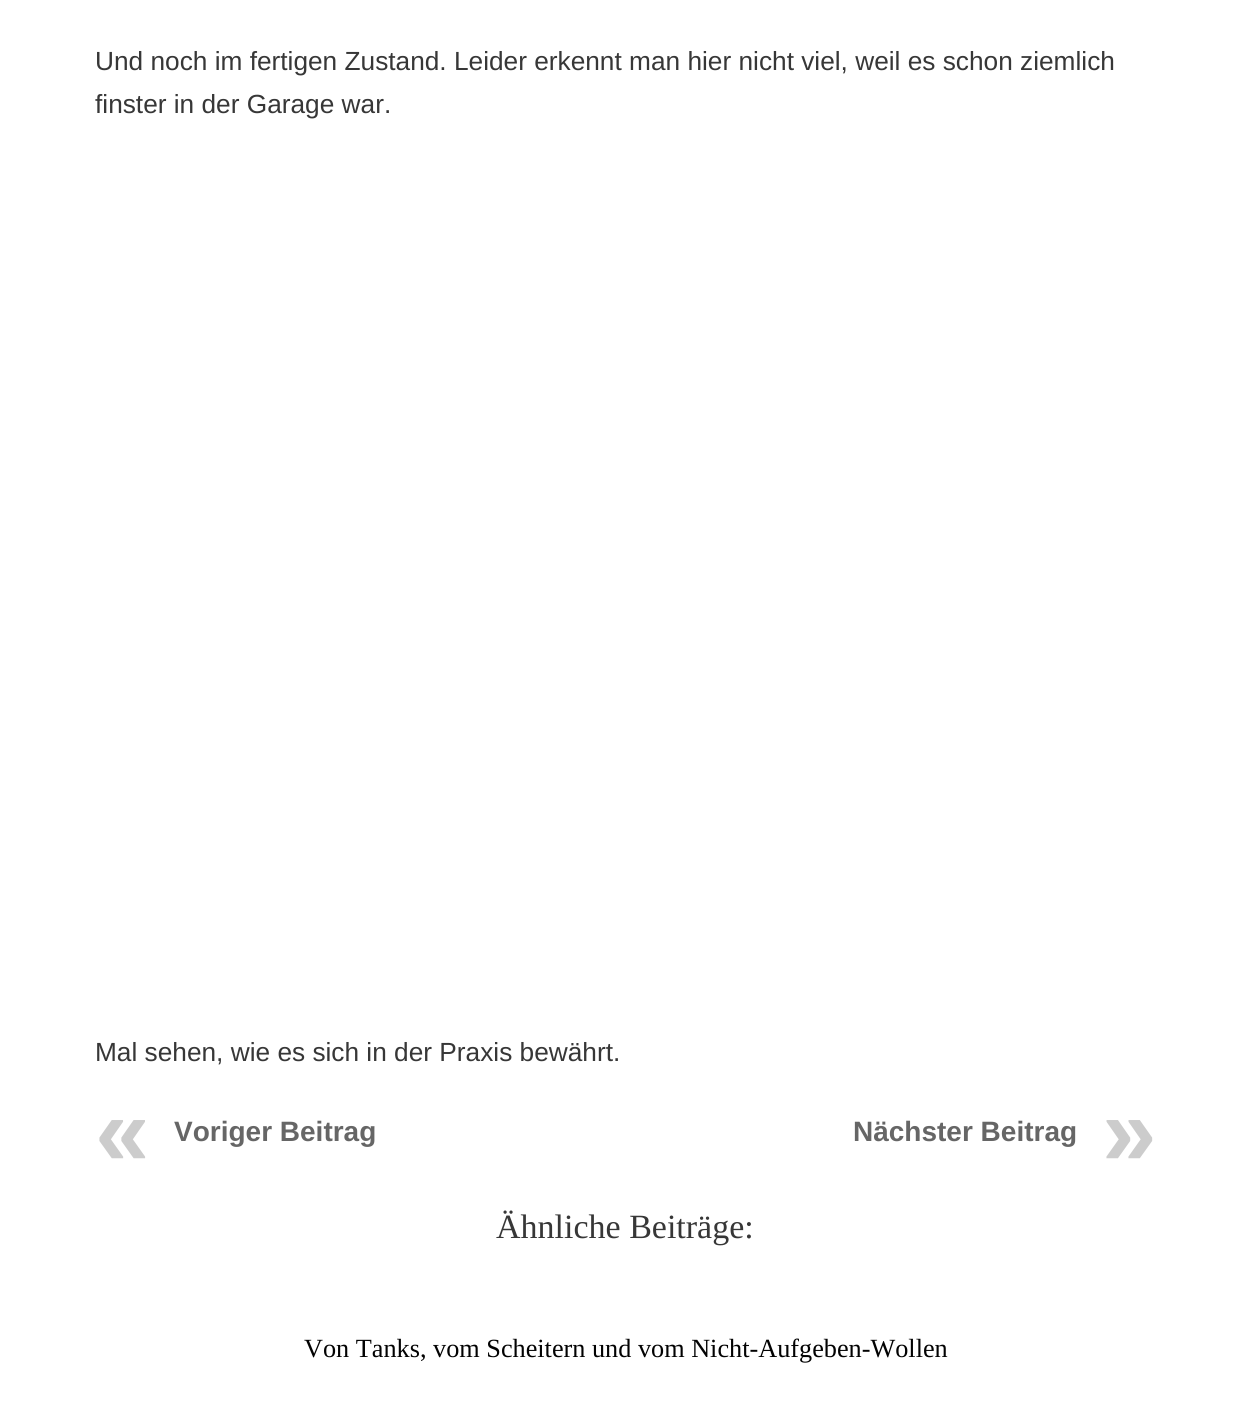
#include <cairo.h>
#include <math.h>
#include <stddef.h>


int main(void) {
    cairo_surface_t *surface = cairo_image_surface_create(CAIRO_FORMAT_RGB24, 1251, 1413);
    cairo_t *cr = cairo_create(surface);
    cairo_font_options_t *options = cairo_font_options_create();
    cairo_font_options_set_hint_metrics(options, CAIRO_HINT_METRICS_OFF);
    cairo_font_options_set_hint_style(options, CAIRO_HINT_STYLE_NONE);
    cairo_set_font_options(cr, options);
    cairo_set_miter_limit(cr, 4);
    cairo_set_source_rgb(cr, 1, 1, 1);
    cairo_paint(cr);
    cairo_select_font_face(cr, "Liberation Sans", CAIRO_FONT_SLANT_NORMAL, CAIRO_FONT_WEIGHT_NORMAL);
    cairo_set_font_size(cr, 26.25);
    cairo_set_source_rgb(cr, 0.216, 0.216, 0.216);
    cairo_move_to(cr, 95, 70);
    cairo_show_text(cr, "Und noch im fertigen Zustand. Leider erkennt man hier nicht viel, weil es schon ziemlich");
    cairo_move_to(cr, 95, 113);
    cairo_show_text(cr, "finster in der Garage war.");
    cairo_move_to(cr, 95, 1061);
    cairo_show_text(cr, "Mal sehen, wie es sich in der Praxis bewährt.");
    cairo_select_font_face(cr, "Liberation Sans", CAIRO_FONT_SLANT_NORMAL, CAIRO_FONT_WEIGHT_BOLD);
    cairo_set_font_size(cr, 98);
    cairo_set_source_rgb(cr, 0.8, 0.8, 0.8);
    cairo_move_to(cr, 95, 1165);
    cairo_show_text(cr, "«");
    cairo_set_font_size(cr, 28);
    cairo_set_source_rgb(cr, 0.4, 0.4, 0.4);
    cairo_move_to(cr, 174, 1141);
    cairo_show_text(cr, "Voriger Beitrag");
    cairo_move_to(cr, 853, 1141);
    cairo_show_text(cr, "Nächster Beitrag");
    cairo_set_font_size(cr, 98);
    cairo_set_source_rgb(cr, 0.8, 0.8, 0.8);
    cairo_move_to(cr, 1102, 1165);
    cairo_show_text(cr, "»");
    cairo_select_font_face(cr, "Liberation Serif", CAIRO_FONT_SLANT_NORMAL, CAIRO_FONT_WEIGHT_NORMAL);
    cairo_set_font_size(cr, 34);
    cairo_set_source_rgb(cr, 0.216, 0.216, 0.216);
    cairo_move_to(cr, 496, 1238);
    cairo_show_text(cr, "Ähnliche Beiträge:");
    cairo_set_font_size(cr, 26.25);
    cairo_set_source_rgb(cr, 0.008, 0.008, 0.008);
    cairo_move_to(cr, 304, 1357);
    cairo_show_text(cr, "Von Tanks, vom Scheitern und vom Nicht-Aufgeben-Wollen");
    cairo_surface_write_to_png(surface, "page.png");
    cairo_font_options_destroy(options);
    cairo_destroy(cr);
    cairo_surface_destroy(surface);
    return 0;
}
